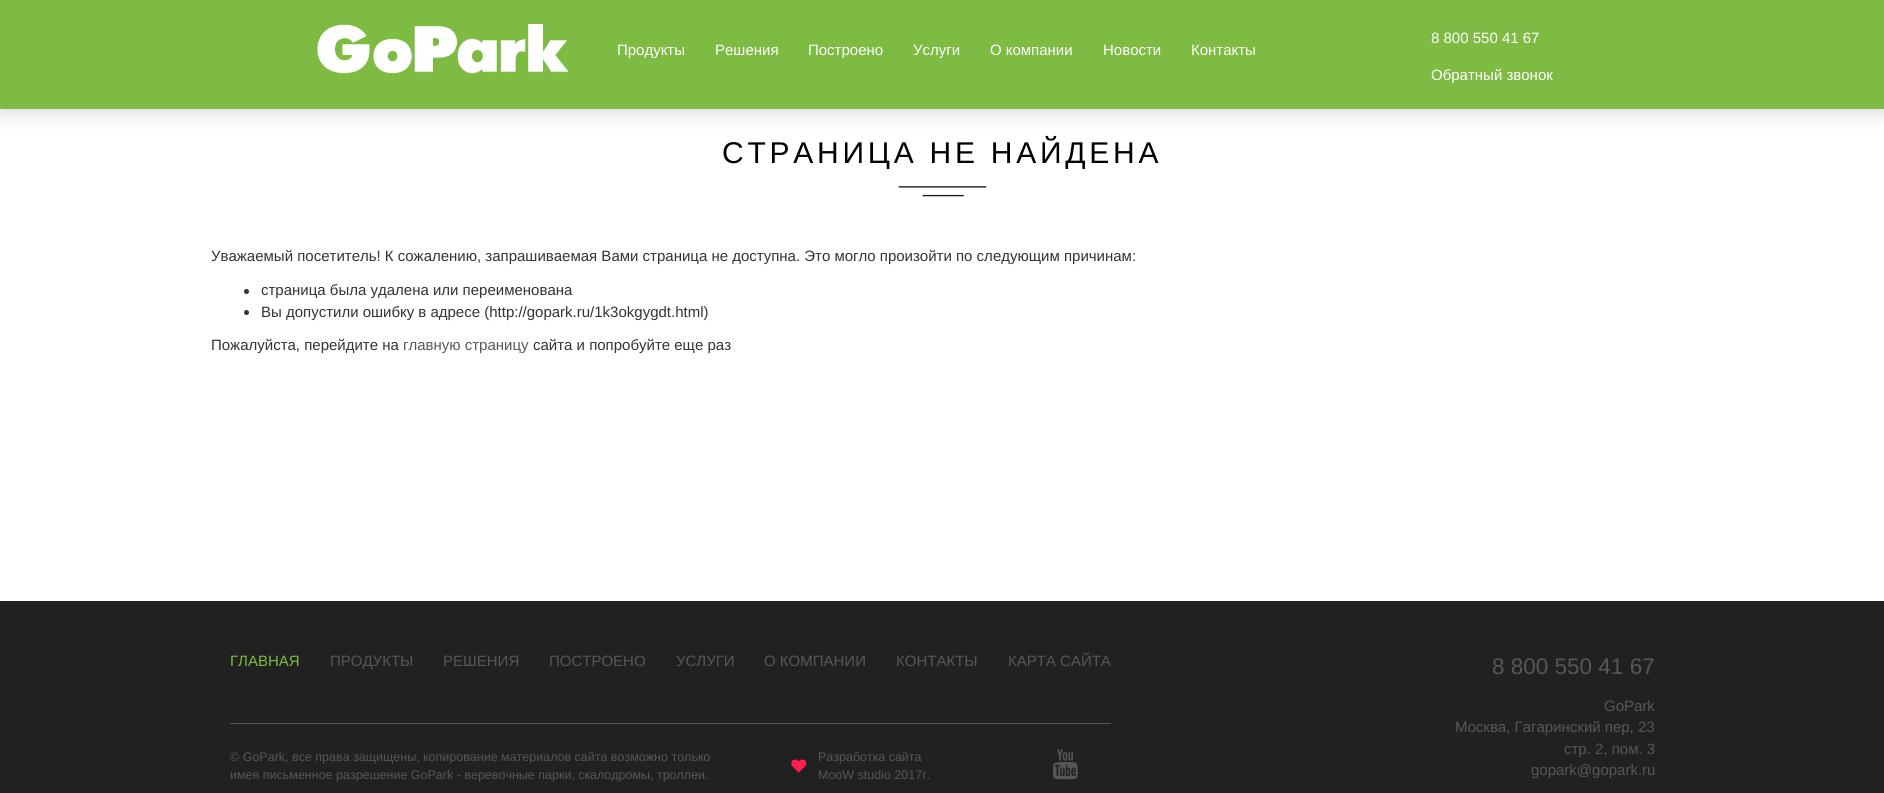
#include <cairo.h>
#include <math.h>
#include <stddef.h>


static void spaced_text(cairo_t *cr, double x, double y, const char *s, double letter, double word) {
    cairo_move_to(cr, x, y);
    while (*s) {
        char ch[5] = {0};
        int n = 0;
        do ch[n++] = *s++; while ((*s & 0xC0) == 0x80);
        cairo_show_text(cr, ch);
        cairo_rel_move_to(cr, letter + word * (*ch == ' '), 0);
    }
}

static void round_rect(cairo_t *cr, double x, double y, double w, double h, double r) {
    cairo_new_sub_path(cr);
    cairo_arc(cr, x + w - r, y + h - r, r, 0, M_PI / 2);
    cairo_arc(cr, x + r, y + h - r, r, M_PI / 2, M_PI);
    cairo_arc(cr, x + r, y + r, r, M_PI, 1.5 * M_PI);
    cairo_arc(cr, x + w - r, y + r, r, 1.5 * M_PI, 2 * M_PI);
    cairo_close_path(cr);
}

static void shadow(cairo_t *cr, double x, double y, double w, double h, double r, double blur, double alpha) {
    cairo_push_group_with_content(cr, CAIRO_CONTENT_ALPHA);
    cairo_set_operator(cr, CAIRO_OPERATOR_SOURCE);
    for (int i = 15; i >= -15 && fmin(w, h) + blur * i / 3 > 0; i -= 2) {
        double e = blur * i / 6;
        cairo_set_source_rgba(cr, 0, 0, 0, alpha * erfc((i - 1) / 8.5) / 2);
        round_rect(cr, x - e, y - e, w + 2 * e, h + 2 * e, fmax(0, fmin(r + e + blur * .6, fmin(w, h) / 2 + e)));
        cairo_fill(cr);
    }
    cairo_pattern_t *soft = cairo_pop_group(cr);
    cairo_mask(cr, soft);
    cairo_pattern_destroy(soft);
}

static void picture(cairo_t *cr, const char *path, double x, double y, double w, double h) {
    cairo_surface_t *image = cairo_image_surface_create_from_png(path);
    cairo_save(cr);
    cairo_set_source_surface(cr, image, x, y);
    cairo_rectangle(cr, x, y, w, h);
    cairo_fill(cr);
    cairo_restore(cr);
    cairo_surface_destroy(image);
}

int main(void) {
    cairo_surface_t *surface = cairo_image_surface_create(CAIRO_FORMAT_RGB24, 1884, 793);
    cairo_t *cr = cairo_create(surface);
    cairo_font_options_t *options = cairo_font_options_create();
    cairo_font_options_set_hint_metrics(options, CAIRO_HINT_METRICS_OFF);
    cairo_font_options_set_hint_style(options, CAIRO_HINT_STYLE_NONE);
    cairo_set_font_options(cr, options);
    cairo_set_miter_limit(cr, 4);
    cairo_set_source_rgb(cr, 1, 1, 1);
    cairo_paint(cr);
    cairo_set_source_rgb(cr, 0, 0, 0);
    shadow(cr, 0, 0, 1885, 109, 0, 12.5, 0.2);
    cairo_set_source_rgb(cr, 0.494, 0.733, 0.259);
    cairo_rectangle(cr, 0, 0, 1884, 109);
    cairo_fill(cr);
    picture(cr, "img1.png", 317, 24, 252, 50);
    cairo_select_font_face(cr, "Liberation Sans", CAIRO_FONT_SLANT_NORMAL, CAIRO_FONT_WEIGHT_NORMAL);
    cairo_set_font_size(cr, 15);
    cairo_set_source_rgb(cr, 1, 1, 1);
    cairo_move_to(cr, 617, 55);
    cairo_show_text(cr, "Продукты");
    cairo_move_to(cr, 715, 55);
    cairo_show_text(cr, "Решения");
    cairo_move_to(cr, 808, 55);
    cairo_show_text(cr, "Построено");
    cairo_move_to(cr, 913, 55);
    cairo_show_text(cr, "Услуги");
    cairo_move_to(cr, 990, 55);
    cairo_show_text(cr, "О компании");
    cairo_move_to(cr, 1103, 55);
    cairo_show_text(cr, "Новости");
    cairo_move_to(cr, 1191, 55);
    cairo_show_text(cr, "Контакты");
    cairo_move_to(cr, 1431, 43);
    cairo_show_text(cr, "8 800 550 41 67");
    cairo_move_to(cr, 1431, 80);
    cairo_show_text(cr, "Обратный звонок");
    picture(cr, "img2.png", 898, 186, 89, 11);
    cairo_set_font_size(cr, 30);
    cairo_set_source_rgb(cr, 0, 0, 0);
    spaced_text(cr, 722, 163, "СТРАНИЦА НЕ НАЙДЕНА", 3.75, 0);
    cairo_set_font_size(cr, 15);
    cairo_set_source_rgb(cr, 0.2, 0.2, 0.2);
    cairo_move_to(cr, 211, 261);
    cairo_show_text(cr, "Уважаемый посетитель! К сожалению, запрашиваемая Вами страница не доступна. Это могло произойти по следующим причинам:");
    cairo_new_path(cr);
    cairo_arc(cr, 246.5, 291.5, 2.5, 0, 2 * M_PI);
    cairo_fill(cr);
    cairo_move_to(cr, 261, 295);
    cairo_show_text(cr, "страница была удалена или переименована");
    cairo_new_path(cr);
    cairo_arc(cr, 246.5, 312.5, 2.5, 0, 2 * M_PI);
    cairo_fill(cr);
    cairo_move_to(cr, 261, 317);
    cairo_show_text(cr, "Вы допустили ошибку в адресе (http://gopark.ru/1k3okgygdt.html)");
    cairo_move_to(cr, 211, 350);
    cairo_show_text(cr, "Пожалуйста, перейдите на");
    cairo_set_source_rgb(cr, 0.341, 0.341, 0.341);
    cairo_move_to(cr, 403, 350);
    cairo_show_text(cr, "главную страницу");
    cairo_set_source_rgb(cr, 0.2, 0.2, 0.2);
    cairo_move_to(cr, 533, 350);
    cairo_show_text(cr, "сайта и попробуйте еще раз");
    cairo_set_source_rgb(cr, 0.129, 0.129, 0.129);
    cairo_rectangle(cr, 0, 601, 1884, 192);
    cairo_fill(cr);
    cairo_set_source_rgb(cr, 0.341, 0.341, 0.341);
    cairo_rectangle(cr, 230, 723, 881, 1);
    cairo_fill(cr);
    cairo_set_source_rgb(cr, 0.494, 0.733, 0.259);
    cairo_move_to(cr, 230, 666);
    cairo_show_text(cr, "ГЛАВНАЯ");
    cairo_set_source_rgb(cr, 0.341, 0.341, 0.341);
    cairo_move_to(cr, 330, 666);
    cairo_show_text(cr, "ПРОДУКТЫ");
    cairo_move_to(cr, 443, 666);
    cairo_show_text(cr, "РЕШЕНИЯ");
    cairo_move_to(cr, 549, 666);
    cairo_show_text(cr, "ПОСТРОЕНО");
    cairo_move_to(cr, 676, 666);
    cairo_show_text(cr, "УСЛУГИ");
    cairo_move_to(cr, 764, 666);
    cairo_show_text(cr, "О КОМПАНИИ");
    cairo_move_to(cr, 896, 666);
    cairo_show_text(cr, "КОНТАКТЫ");
    cairo_move_to(cr, 1008, 666);
    cairo_show_text(cr, "КАРТА САЙТА");
    cairo_set_font_size(cr, 12.5);
    cairo_move_to(cr, 230, 761);
    cairo_show_text(cr, "© GoPark, все права защищены, копирование материалов сайта возможно только");
    cairo_move_to(cr, 230, 779);
    cairo_show_text(cr, "имея письменное разрешение GoPark - веревочные парки, скалодромы, троллеи.");
    picture(cr, "img3.png", 791, 759, 16, 14);
    cairo_move_to(cr, 818, 761);
    cairo_show_text(cr, "Разработка сайта");
    cairo_move_to(cr, 818, 779);
    cairo_show_text(cr, "MooW studio 2017г.");
    picture(cr, "img4.png", 1053, 749, 25, 31);
    cairo_set_font_size(cr, 22.5);
    cairo_move_to(cr, 1492, 674);
    cairo_show_text(cr, "8 800 550 41 67");
    cairo_set_font_size(cr, 15);
    cairo_move_to(cr, 1604, 711);
    cairo_show_text(cr, "GoPark");
    cairo_move_to(cr, 1455, 732);
    cairo_show_text(cr, "Москва, Гагаринский пер, 23");
    cairo_move_to(cr, 1564, 754);
    cairo_show_text(cr, "стр. 2, пом. 3");
    cairo_move_to(cr, 1531, 775);
    cairo_show_text(cr, "gopark@gopark.ru");
    cairo_surface_write_to_png(surface, "page.png");
    cairo_font_options_destroy(options);
    cairo_destroy(cr);
    cairo_surface_destroy(surface);
    return 0;
}
